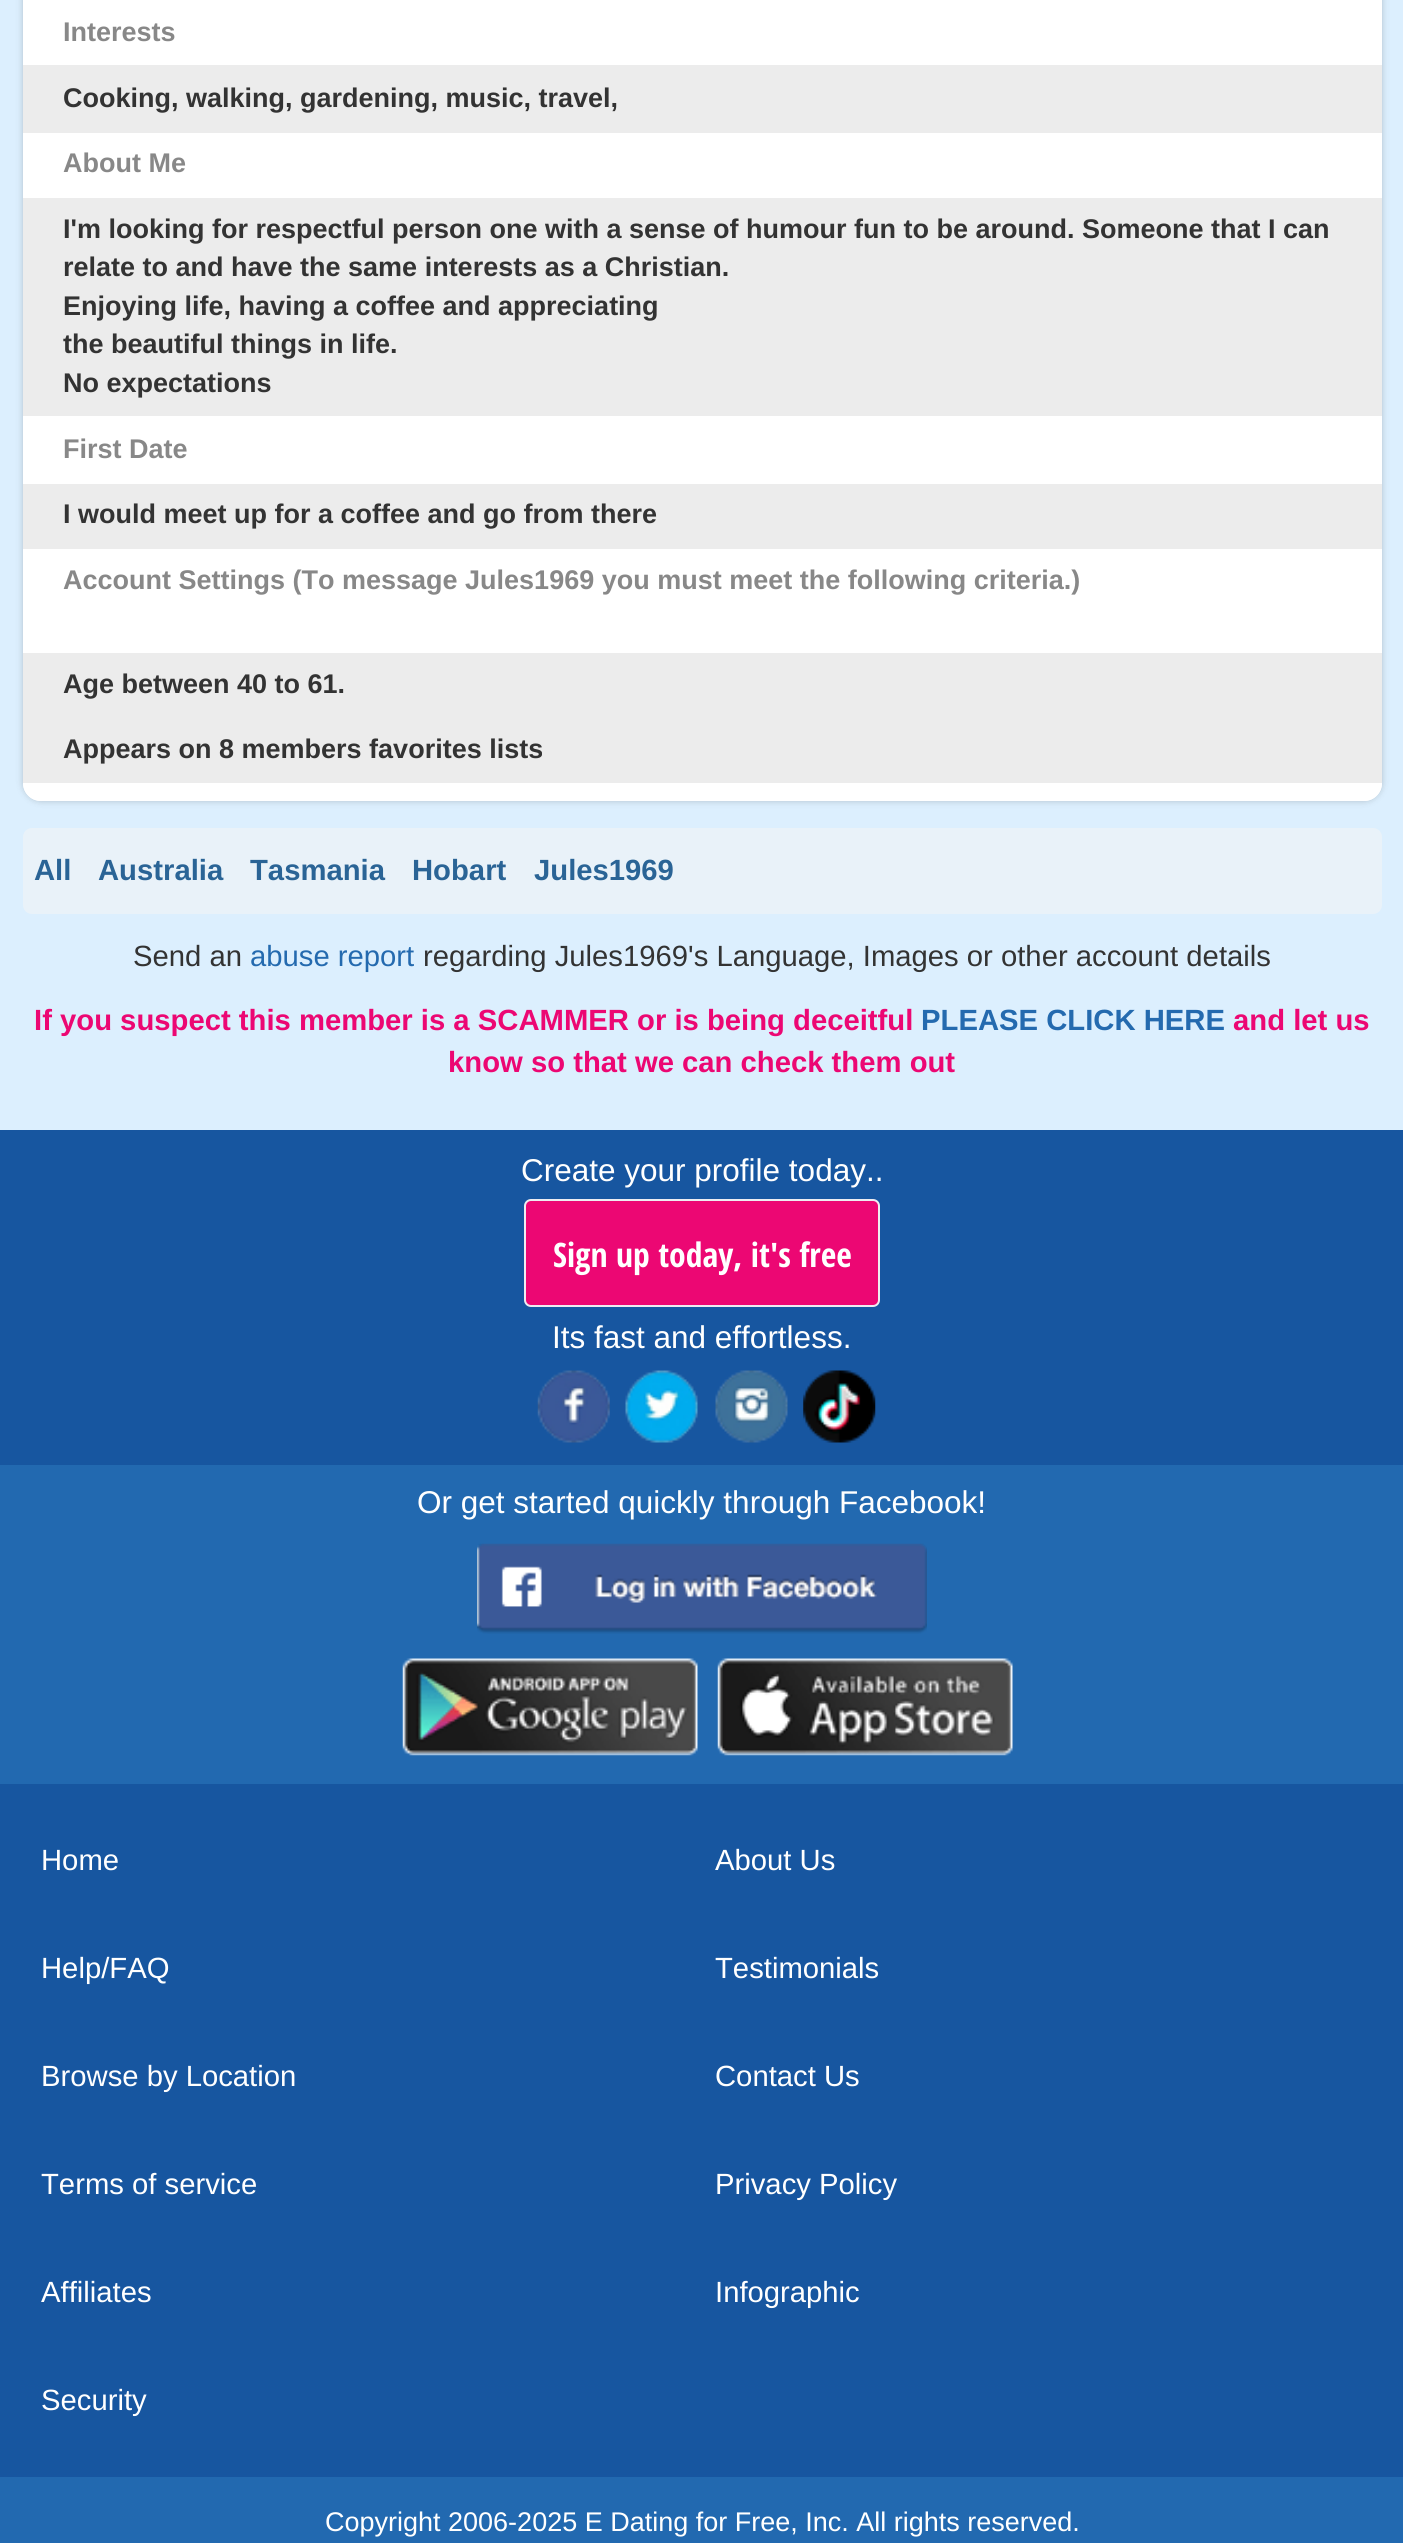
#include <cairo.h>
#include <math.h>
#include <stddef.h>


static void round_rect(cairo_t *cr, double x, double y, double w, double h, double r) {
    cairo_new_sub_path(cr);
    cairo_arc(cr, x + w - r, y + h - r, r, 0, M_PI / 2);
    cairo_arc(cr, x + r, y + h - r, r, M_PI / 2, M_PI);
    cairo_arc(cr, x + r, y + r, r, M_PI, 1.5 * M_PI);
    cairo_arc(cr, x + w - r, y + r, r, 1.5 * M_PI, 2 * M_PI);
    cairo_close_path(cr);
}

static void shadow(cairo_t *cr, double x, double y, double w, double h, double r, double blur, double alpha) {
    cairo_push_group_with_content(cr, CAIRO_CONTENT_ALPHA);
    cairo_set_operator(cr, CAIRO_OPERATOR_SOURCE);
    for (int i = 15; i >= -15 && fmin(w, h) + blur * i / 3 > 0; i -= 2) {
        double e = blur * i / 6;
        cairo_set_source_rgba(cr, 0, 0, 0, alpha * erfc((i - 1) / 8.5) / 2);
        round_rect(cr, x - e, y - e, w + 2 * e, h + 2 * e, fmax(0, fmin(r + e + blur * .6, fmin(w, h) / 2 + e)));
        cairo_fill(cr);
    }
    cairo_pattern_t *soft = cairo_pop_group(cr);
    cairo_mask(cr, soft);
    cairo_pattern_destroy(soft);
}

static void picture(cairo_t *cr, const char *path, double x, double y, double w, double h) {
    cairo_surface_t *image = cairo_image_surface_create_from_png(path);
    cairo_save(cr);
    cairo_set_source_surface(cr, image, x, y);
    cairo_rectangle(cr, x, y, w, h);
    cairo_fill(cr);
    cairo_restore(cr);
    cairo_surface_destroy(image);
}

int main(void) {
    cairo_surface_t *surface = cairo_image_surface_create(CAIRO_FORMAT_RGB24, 1403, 2543);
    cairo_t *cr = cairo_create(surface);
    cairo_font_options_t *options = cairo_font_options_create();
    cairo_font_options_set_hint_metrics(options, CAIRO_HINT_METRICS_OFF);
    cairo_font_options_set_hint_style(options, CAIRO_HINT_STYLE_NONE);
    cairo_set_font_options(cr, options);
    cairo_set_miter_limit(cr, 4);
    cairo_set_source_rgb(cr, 0.863, 0.937, 0.996);
    cairo_paint(cr);
    cairo_set_source_rgb(cr, 0, 0, 0);
    shadow(cr, 23, -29, 1359, 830, 18, 3.5, 0.2);
    cairo_set_source_rgb(cr, 1, 1, 1);
    round_rect(cr, 23, -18, 1359, 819, 18);
    cairo_fill(cr);
    cairo_new_path(cr);
    cairo_move_to(cr, 32, 0);
    cairo_line_to(cr, 1373, 0);
    cairo_curve_to(cr, 1378, 0, 1382, 4, 1382, 9);
    cairo_line_to(cr, 1382, 783);
    cairo_curve_to(cr, 1382, 793, 1374, 801, 1364, 801);
    cairo_line_to(cr, 41, 801);
    cairo_curve_to(cr, 31, 801, 23, 793, 23, 783);
    cairo_line_to(cr, 23, 9);
    cairo_curve_to(cr, 23, 4, 27, 0, 32, 0);
    cairo_close_path(cr);
    cairo_fill(cr);
    cairo_select_font_face(cr, "Liberation Sans", CAIRO_FONT_SLANT_NORMAL, CAIRO_FONT_WEIGHT_BOLD);
    cairo_set_font_size(cr, 27);
    cairo_set_source_rgb(cr, 0.533, 0.533, 0.533);
    cairo_move_to(cr, 63, 41);
    cairo_show_text(cr, "Interests");
    cairo_set_source_rgb(cr, 0.925, 0.925, 0.925);
    cairo_rectangle(cr, 23, 65, 1359, 68);
    cairo_fill(cr);
    cairo_set_source_rgb(cr, 0.2, 0.2, 0.2);
    cairo_move_to(cr, 63, 107);
    cairo_show_text(cr, "Cooking, walking, gardening, music, travel,");
    cairo_set_source_rgb(cr, 0.533, 0.533, 0.533);
    cairo_move_to(cr, 63, 172);
    cairo_show_text(cr, "About Me");
    cairo_set_source_rgb(cr, 0.925, 0.925, 0.925);
    cairo_rectangle(cr, 23, 198, 1359, 218);
    cairo_fill(cr);
    cairo_set_source_rgb(cr, 0.2, 0.2, 0.2);
    cairo_move_to(cr, 63, 238);
    cairo_show_text(cr, "I'm looking for respectful person one with a sense of humour fun to be around. Someone that I can");
    cairo_move_to(cr, 63, 276);
    cairo_show_text(cr, "relate to and have the same interests as a Christian.");
    cairo_move_to(cr, 63, 315);
    cairo_show_text(cr, "Enjoying life, having a coffee and appreciating");
    cairo_move_to(cr, 63, 353);
    cairo_show_text(cr, "the beautiful things in life.");
    cairo_move_to(cr, 63, 392);
    cairo_show_text(cr, "No expectations");
    cairo_set_source_rgb(cr, 0.533, 0.533, 0.533);
    cairo_move_to(cr, 63, 458);
    cairo_show_text(cr, "First Date");
    cairo_set_source_rgb(cr, 0.925, 0.925, 0.925);
    cairo_rectangle(cr, 23, 484, 1359, 65);
    cairo_fill(cr);
    cairo_set_source_rgb(cr, 0.2, 0.2, 0.2);
    cairo_move_to(cr, 63, 523);
    cairo_show_text(cr, "I would meet up for a coffee and go from there");
    cairo_set_source_rgb(cr, 0.533, 0.533, 0.533);
    cairo_move_to(cr, 63, 589);
    cairo_show_text(cr, "Account Settings (To message Jules1969 you must meet the following criteria.)");
    cairo_set_source_rgb(cr, 0.925, 0.925, 0.925);
    cairo_rectangle(cr, 23, 653, 1359, 130);
    cairo_fill(cr);
    cairo_set_source_rgb(cr, 0.2, 0.2, 0.2);
    cairo_move_to(cr, 63, 693);
    cairo_show_text(cr, "Age between 40 to 61.");
    cairo_move_to(cr, 63, 758);
    cairo_show_text(cr, "Appears on 8 members favorites lists");
    cairo_set_source_rgb(cr, 0.914, 0.949, 0.976);
    round_rect(cr, 23, 828, 1359, 86, 9);
    cairo_fill(cr);
    cairo_set_font_size(cr, 29.25);
    cairo_set_source_rgb(cr, 0.165, 0.392, 0.588);
    cairo_move_to(cr, 34, 880);
    cairo_show_text(cr, "All");
    cairo_move_to(cr, 98, 880);
    cairo_show_text(cr, "Australia");
    cairo_move_to(cr, 250, 880);
    cairo_show_text(cr, "Tasmania");
    cairo_move_to(cr, 412, 880);
    cairo_show_text(cr, "Hobart");
    cairo_move_to(cr, 534, 880);
    cairo_show_text(cr, "Jules1969");
    cairo_select_font_face(cr, "Liberation Sans", CAIRO_FONT_SLANT_NORMAL, CAIRO_FONT_WEIGHT_NORMAL);
    cairo_set_source_rgb(cr, 0.2, 0.2, 0.2);
    cairo_move_to(cr, 133, 966);
    cairo_show_text(cr, "Send an");
    cairo_set_source_rgb(cr, 0.141, 0.416, 0.686);
    cairo_move_to(cr, 250, 966);
    cairo_show_text(cr, "abuse report");
    cairo_set_source_rgb(cr, 0.2, 0.2, 0.2);
    cairo_move_to(cr, 423, 966);
    cairo_show_text(cr, "regarding Jules1969's Language, Images or other account details");
    cairo_select_font_face(cr, "Liberation Sans", CAIRO_FONT_SLANT_NORMAL, CAIRO_FONT_WEIGHT_BOLD);
    cairo_set_source_rgb(cr, 0.922, 0.031, 0.451);
    cairo_move_to(cr, 34, 1030);
    cairo_show_text(cr, "If you suspect this member is a SCAMMER or is being deceitful");
    cairo_set_source_rgb(cr, 0.141, 0.416, 0.686);
    cairo_move_to(cr, 921, 1030);
    cairo_show_text(cr, "PLEASE CLICK HERE");
    cairo_set_source_rgb(cr, 0.922, 0.031, 0.451);
    cairo_move_to(cr, 1233, 1030);
    cairo_show_text(cr, "and let us");
    cairo_move_to(cr, 448, 1072);
    cairo_show_text(cr, "know so that we can check them out");
    cairo_set_source_rgb(cr, 0.133, 0.412, 0.69);
    cairo_rectangle(cr, 0, 1465, 1403, 1078);
    cairo_fill(cr);
    cairo_set_source_rgb(cr, 0.09, 0.337, 0.627);
    cairo_rectangle(cr, 0, 1130, 1403, 335);
    cairo_fill(cr);
    cairo_select_font_face(cr, "Liberation Sans", CAIRO_FONT_SLANT_NORMAL, CAIRO_FONT_WEIGHT_NORMAL);
    cairo_set_font_size(cr, 31.5);
    cairo_set_source_rgb(cr, 1, 1, 1);
    cairo_move_to(cr, 521, 1181);
    cairo_show_text(cr, "Create your profile today..");
    cairo_set_source_rgb(cr, 0.922, 0.031, 0.451);
    round_rect(cr, 525, 1200, 354, 106, 6);
    cairo_fill_preserve(cr);
    cairo_set_source_rgb(cr, 0.933, 0.925, 0.945);
    cairo_stroke(cr);
    cairo_select_font_face(cr, "Open Sans Condensed", CAIRO_FONT_SLANT_NORMAL, CAIRO_FONT_WEIGHT_BOLD);
    cairo_set_font_size(cr, 33.75);
    cairo_set_source_rgb(cr, 1, 1, 1);
    cairo_move_to(cr, 553, 1267);
    cairo_show_text(cr, "Sign up today, it's free");
    cairo_select_font_face(cr, "Liberation Sans", CAIRO_FONT_SLANT_NORMAL, CAIRO_FONT_WEIGHT_NORMAL);
    cairo_set_font_size(cr, 31.5);
    cairo_move_to(cr, 552, 1348);
    cairo_show_text(cr, "Its fast and effortless.");
    picture(cr, "img1.png", 537, 1370, 73, 73);
    picture(cr, "img2.png", 625, 1370, 73, 73);
    picture(cr, "img3.png", 715, 1370, 73, 73);
    picture(cr, "img4.png", 803, 1370, 73, 73);
    cairo_move_to(cr, 417, 1513);
    cairo_show_text(cr, "Or get started quickly through Facebook!");
    picture(cr, "img5.png", 477, 1543, 450, 91);
    picture(cr, "img6.png", 402, 1658, 296, 98);
    picture(cr, "img7.png", 717, 1658, 296, 98);
    cairo_set_source_rgb(cr, 0.09, 0.337, 0.627);
    cairo_rectangle(cr, 0, 1784, 1403, 693);
    cairo_fill(cr);
    cairo_set_font_size(cr, 29.25);
    cairo_set_source_rgb(cr, 1, 1, 1);
    cairo_move_to(cr, 41, 1870);
    cairo_show_text(cr, "Home");
    cairo_move_to(cr, 715, 1870);
    cairo_show_text(cr, "About Us");
    cairo_move_to(cr, 41, 1978);
    cairo_show_text(cr, "Help/FAQ");
    cairo_move_to(cr, 715, 1978);
    cairo_show_text(cr, "Testimonials");
    cairo_move_to(cr, 41, 2086);
    cairo_show_text(cr, "Browse by Location");
    cairo_move_to(cr, 715, 2086);
    cairo_show_text(cr, "Contact Us");
    cairo_move_to(cr, 41, 2194);
    cairo_show_text(cr, "Terms of service");
    cairo_move_to(cr, 715, 2194);
    cairo_show_text(cr, "Privacy Policy");
    cairo_move_to(cr, 41, 2302);
    cairo_show_text(cr, "Affiliates");
    cairo_move_to(cr, 715, 2302);
    cairo_show_text(cr, "Infographic");
    cairo_move_to(cr, 41, 2410);
    cairo_show_text(cr, "Security");
    cairo_set_font_size(cr, 27);
    cairo_move_to(cr, 325, 2531);
    cairo_show_text(cr, "Copyright 2006-2025 E Dating for Free, Inc. All rights reserved.");
    cairo_surface_write_to_png(surface, "page.png");
    cairo_font_options_destroy(options);
    cairo_destroy(cr);
    cairo_surface_destroy(surface);
    return 0;
}
